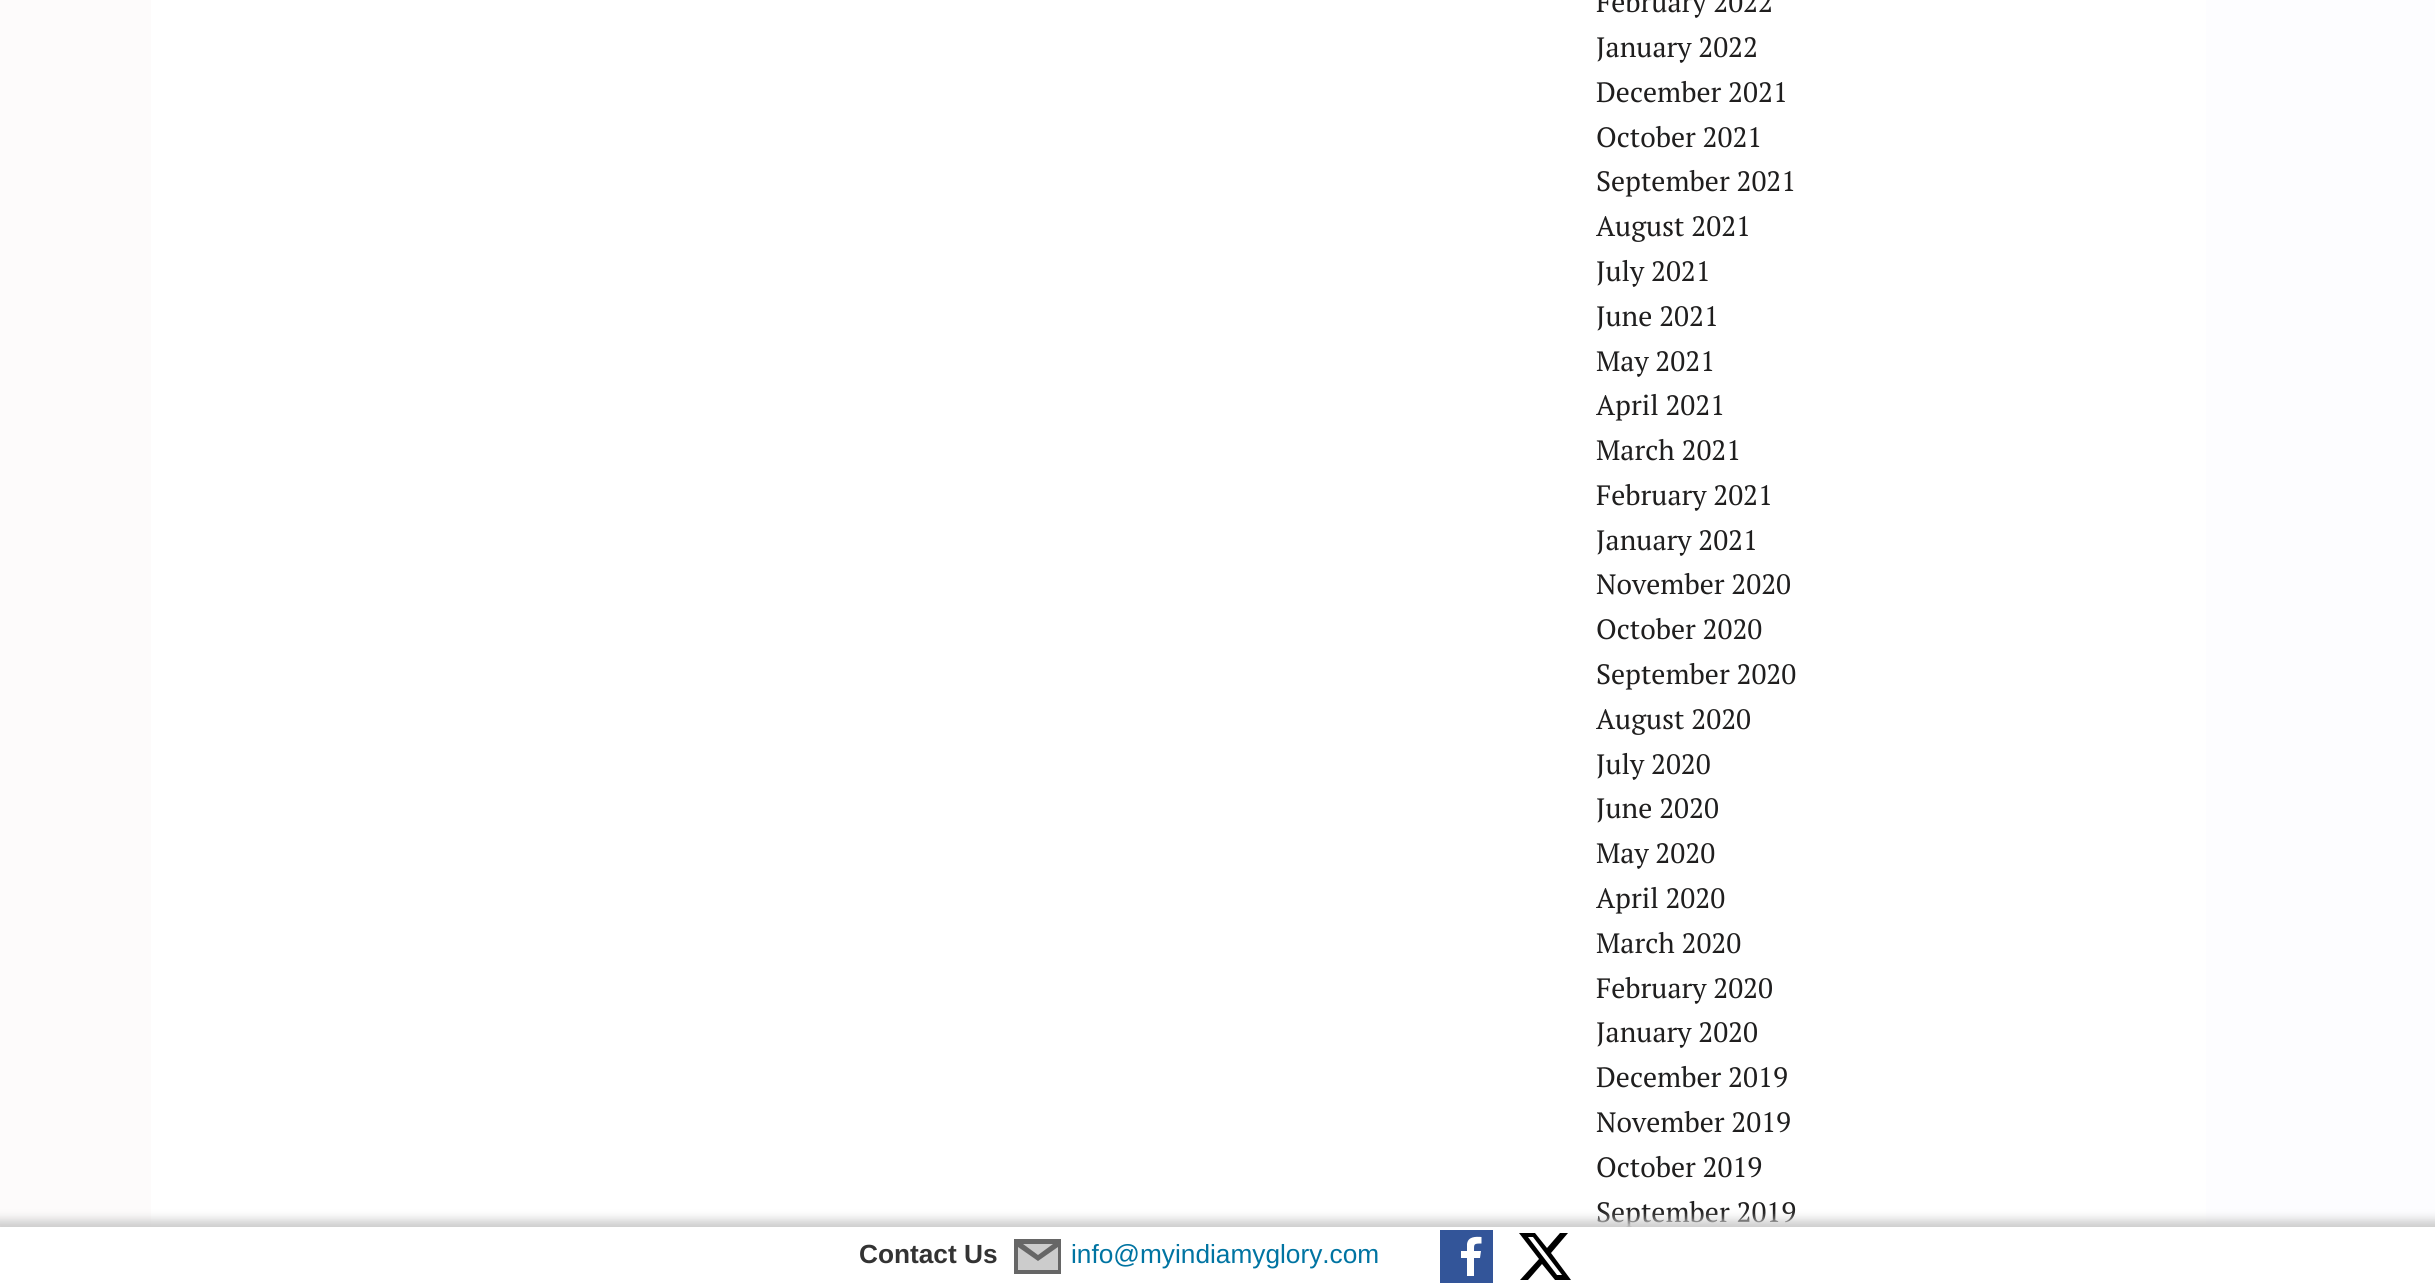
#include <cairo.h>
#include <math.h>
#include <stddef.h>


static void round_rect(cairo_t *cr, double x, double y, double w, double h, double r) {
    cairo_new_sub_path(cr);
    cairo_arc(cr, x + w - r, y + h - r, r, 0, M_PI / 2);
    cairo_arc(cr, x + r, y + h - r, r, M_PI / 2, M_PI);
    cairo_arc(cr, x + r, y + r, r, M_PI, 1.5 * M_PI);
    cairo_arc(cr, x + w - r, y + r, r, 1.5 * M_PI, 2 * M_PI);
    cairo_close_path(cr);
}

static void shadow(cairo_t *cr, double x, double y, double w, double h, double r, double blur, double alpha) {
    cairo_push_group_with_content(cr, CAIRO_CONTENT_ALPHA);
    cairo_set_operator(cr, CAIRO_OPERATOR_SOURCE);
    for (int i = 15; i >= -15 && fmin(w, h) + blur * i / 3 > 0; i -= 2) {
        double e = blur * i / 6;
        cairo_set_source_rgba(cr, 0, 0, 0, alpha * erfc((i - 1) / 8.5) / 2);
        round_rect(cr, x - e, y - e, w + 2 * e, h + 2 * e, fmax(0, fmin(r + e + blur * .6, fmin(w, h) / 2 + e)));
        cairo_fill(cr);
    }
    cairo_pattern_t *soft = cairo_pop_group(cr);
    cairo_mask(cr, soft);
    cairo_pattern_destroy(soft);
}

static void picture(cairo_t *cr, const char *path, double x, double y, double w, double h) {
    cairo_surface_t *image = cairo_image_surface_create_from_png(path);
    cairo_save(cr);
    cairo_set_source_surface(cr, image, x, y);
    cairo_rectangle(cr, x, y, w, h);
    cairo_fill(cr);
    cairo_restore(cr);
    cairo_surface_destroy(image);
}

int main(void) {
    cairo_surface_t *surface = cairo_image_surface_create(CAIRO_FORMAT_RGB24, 2435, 1285);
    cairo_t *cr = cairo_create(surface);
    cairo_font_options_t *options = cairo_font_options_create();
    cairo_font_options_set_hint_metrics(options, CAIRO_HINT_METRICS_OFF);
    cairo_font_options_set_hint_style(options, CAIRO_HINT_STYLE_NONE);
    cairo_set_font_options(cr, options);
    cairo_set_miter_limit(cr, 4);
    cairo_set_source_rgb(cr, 1, 1, 1);
    cairo_paint(cr);
    picture(cr, "img1.png", 0, 0, 2435, 1227);
    cairo_set_source_rgb(cr, 1, 1, 1);
    cairo_rectangle(cr, 151, 0, 2055, 1227);
    cairo_fill(cr);
    cairo_select_font_face(cr, "PT Serif", CAIRO_FONT_SLANT_NORMAL, CAIRO_FONT_WEIGHT_NORMAL);
    cairo_set_font_size(cr, 28);
    cairo_set_source_rgb(cr, 0.122, 0.118, 0.118);
    cairo_move_to(cr, 1596, 12);
    cairo_show_text(cr, "February 2022");
    cairo_move_to(cr, 1596, 57);
    cairo_show_text(cr, "January 2022");
    cairo_move_to(cr, 1596, 102);
    cairo_show_text(cr, "December 2021");
    cairo_move_to(cr, 1596, 147);
    cairo_show_text(cr, "October 2021");
    cairo_move_to(cr, 1596, 191);
    cairo_show_text(cr, "September 2021");
    cairo_move_to(cr, 1596, 236);
    cairo_show_text(cr, "August 2021");
    cairo_move_to(cr, 1596, 281);
    cairo_show_text(cr, "July 2021");
    cairo_move_to(cr, 1596, 326);
    cairo_show_text(cr, "June 2021");
    cairo_move_to(cr, 1596, 371);
    cairo_show_text(cr, "May 2021");
    cairo_move_to(cr, 1596, 415);
    cairo_show_text(cr, "April 2021");
    cairo_move_to(cr, 1596, 460);
    cairo_show_text(cr, "March 2021");
    cairo_move_to(cr, 1596, 505);
    cairo_show_text(cr, "February 2021");
    cairo_move_to(cr, 1596, 550);
    cairo_show_text(cr, "January 2021");
    cairo_move_to(cr, 1596, 594);
    cairo_show_text(cr, "November 2020");
    cairo_move_to(cr, 1596, 639);
    cairo_show_text(cr, "October 2020");
    cairo_move_to(cr, 1596, 684);
    cairo_show_text(cr, "September 2020");
    cairo_move_to(cr, 1596, 729);
    cairo_show_text(cr, "August 2020");
    cairo_move_to(cr, 1596, 774);
    cairo_show_text(cr, "July 2020");
    cairo_move_to(cr, 1596, 818);
    cairo_show_text(cr, "June 2020");
    cairo_move_to(cr, 1596, 863);
    cairo_show_text(cr, "May 2020");
    cairo_move_to(cr, 1596, 908);
    cairo_show_text(cr, "April 2020");
    cairo_move_to(cr, 1596, 953);
    cairo_show_text(cr, "March 2020");
    cairo_move_to(cr, 1596, 998);
    cairo_show_text(cr, "February 2020");
    cairo_move_to(cr, 1596, 1042);
    cairo_show_text(cr, "January 2020");
    cairo_move_to(cr, 1596, 1087);
    cairo_show_text(cr, "December 2019");
    cairo_move_to(cr, 1596, 1132);
    cairo_show_text(cr, "November 2019");
    cairo_move_to(cr, 1596, 1177);
    cairo_show_text(cr, "October 2019");
    cairo_move_to(cr, 1596, 1222);
    cairo_show_text(cr, "September 2019");
    cairo_set_source_rgb(cr, 0.8, 0.8, 0.8);
    shadow(cr, -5, 1220, 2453, 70, 0, 5, 1);
    cairo_set_source_rgb(cr, 1, 1, 1);
    cairo_rectangle(cr, 0, 1227, 2435, 58);
    cairo_fill(cr);
    cairo_set_source_rgb(cr, 0.2, 0.333, 0.6);
    cairo_rectangle(cr, 1440, 1230, 53, 53);
    cairo_fill(cr);
    cairo_set_source_rgb(cr, 0, 0, 0);
    cairo_new_path(cr);
    cairo_move_to(cr, 1560, 1233);
    cairo_line_to(cr, 1568, 1233);
    cairo_line_to(cr, 1551, 1253);
    cairo_line_to(cr, 1571, 1280);
    cairo_line_to(cr, 1555, 1280);
    cairo_line_to(cr, 1542, 1264);
    cairo_line_to(cr, 1528, 1280);
    cairo_line_to(cr, 1520, 1280);
    cairo_line_to(cr, 1539, 1259);
    cairo_line_to(cr, 1519, 1233);
    cairo_line_to(cr, 1535, 1233);
    cairo_line_to(cr, 1547, 1248);
    cairo_close_path(cr);
    cairo_move_to(cr, 1557, 1275);
    cairo_line_to(cr, 1562, 1275);
    cairo_line_to(cr, 1533, 1237);
    cairo_line_to(cr, 1528, 1237);
    cairo_close_path(cr);
    cairo_fill(cr);
    cairo_select_font_face(cr, "Liberation Sans", CAIRO_FONT_SLANT_NORMAL, CAIRO_FONT_WEIGHT_BOLD);
    cairo_set_font_size(cr, 26.25);
    cairo_set_source_rgb(cr, 0.2, 0.2, 0.2);
    cairo_move_to(cr, 859, 1263);
    cairo_show_text(cr, "Contact Us");
    cairo_select_font_face(cr, "Liberation Sans", CAIRO_FONT_SLANT_NORMAL, CAIRO_FONT_WEIGHT_NORMAL);
    cairo_set_source_rgb(cr, 0, 0.455, 0.635);
    cairo_move_to(cr, 1071, 1263);
    cairo_show_text(cr, "info@myindiamyglory.com");
    cairo_set_source_rgb(cr, 0.8, 0.8, 0.8);
    cairo_rectangle(cr, 1018, 1244, 40, 26);
    cairo_fill(cr);
    cairo_set_source_rgb(cr, 0.4, 0.4, 0.4);
    cairo_new_path(cr);
    cairo_move_to(cr, 1014, 1239);
    cairo_line_to(cr, 1014, 1274);
    cairo_line_to(cr, 1061, 1274);
    cairo_line_to(cr, 1061, 1239);
    cairo_close_path(cr);
    cairo_move_to(cr, 1053, 1244);
    cairo_line_to(cr, 1038, 1255);
    cairo_line_to(cr, 1023, 1244);
    cairo_close_path(cr);
    cairo_move_to(cr, 1058, 1270);
    cairo_line_to(cr, 1018, 1270);
    cairo_line_to(cr, 1018, 1247);
    cairo_line_to(cr, 1038, 1261);
    cairo_line_to(cr, 1058, 1247);
    cairo_close_path(cr);
    cairo_fill(cr);
    cairo_set_source_rgb(cr, 1, 1, 1);
    cairo_new_path(cr);
    cairo_move_to(cr, 1474, 1276);
    cairo_line_to(cr, 1474, 1258);
    cairo_line_to(cr, 1480, 1258);
    cairo_line_to(cr, 1481, 1251);
    cairo_line_to(cr, 1474, 1251);
    cairo_curve_to(cr, 1474, 1244, 1473.5, 1243.5, 1481.5, 1243.5);
    cairo_line_to(cr, 1481.5, 1237);
    cairo_curve_to(cr, 1475.5, 1236.5, 1468, 1236.5, 1467, 1244);
    cairo_line_to(cr, 1467, 1251);
    cairo_line_to(cr, 1461, 1251);
    cairo_line_to(cr, 1461, 1258);
    cairo_line_to(cr, 1467, 1258);
    cairo_line_to(cr, 1467, 1276);
    cairo_close_path(cr);
    cairo_fill(cr);
    cairo_surface_write_to_png(surface, "page.png");
    cairo_font_options_destroy(options);
    cairo_destroy(cr);
    cairo_surface_destroy(surface);
    return 0;
}
